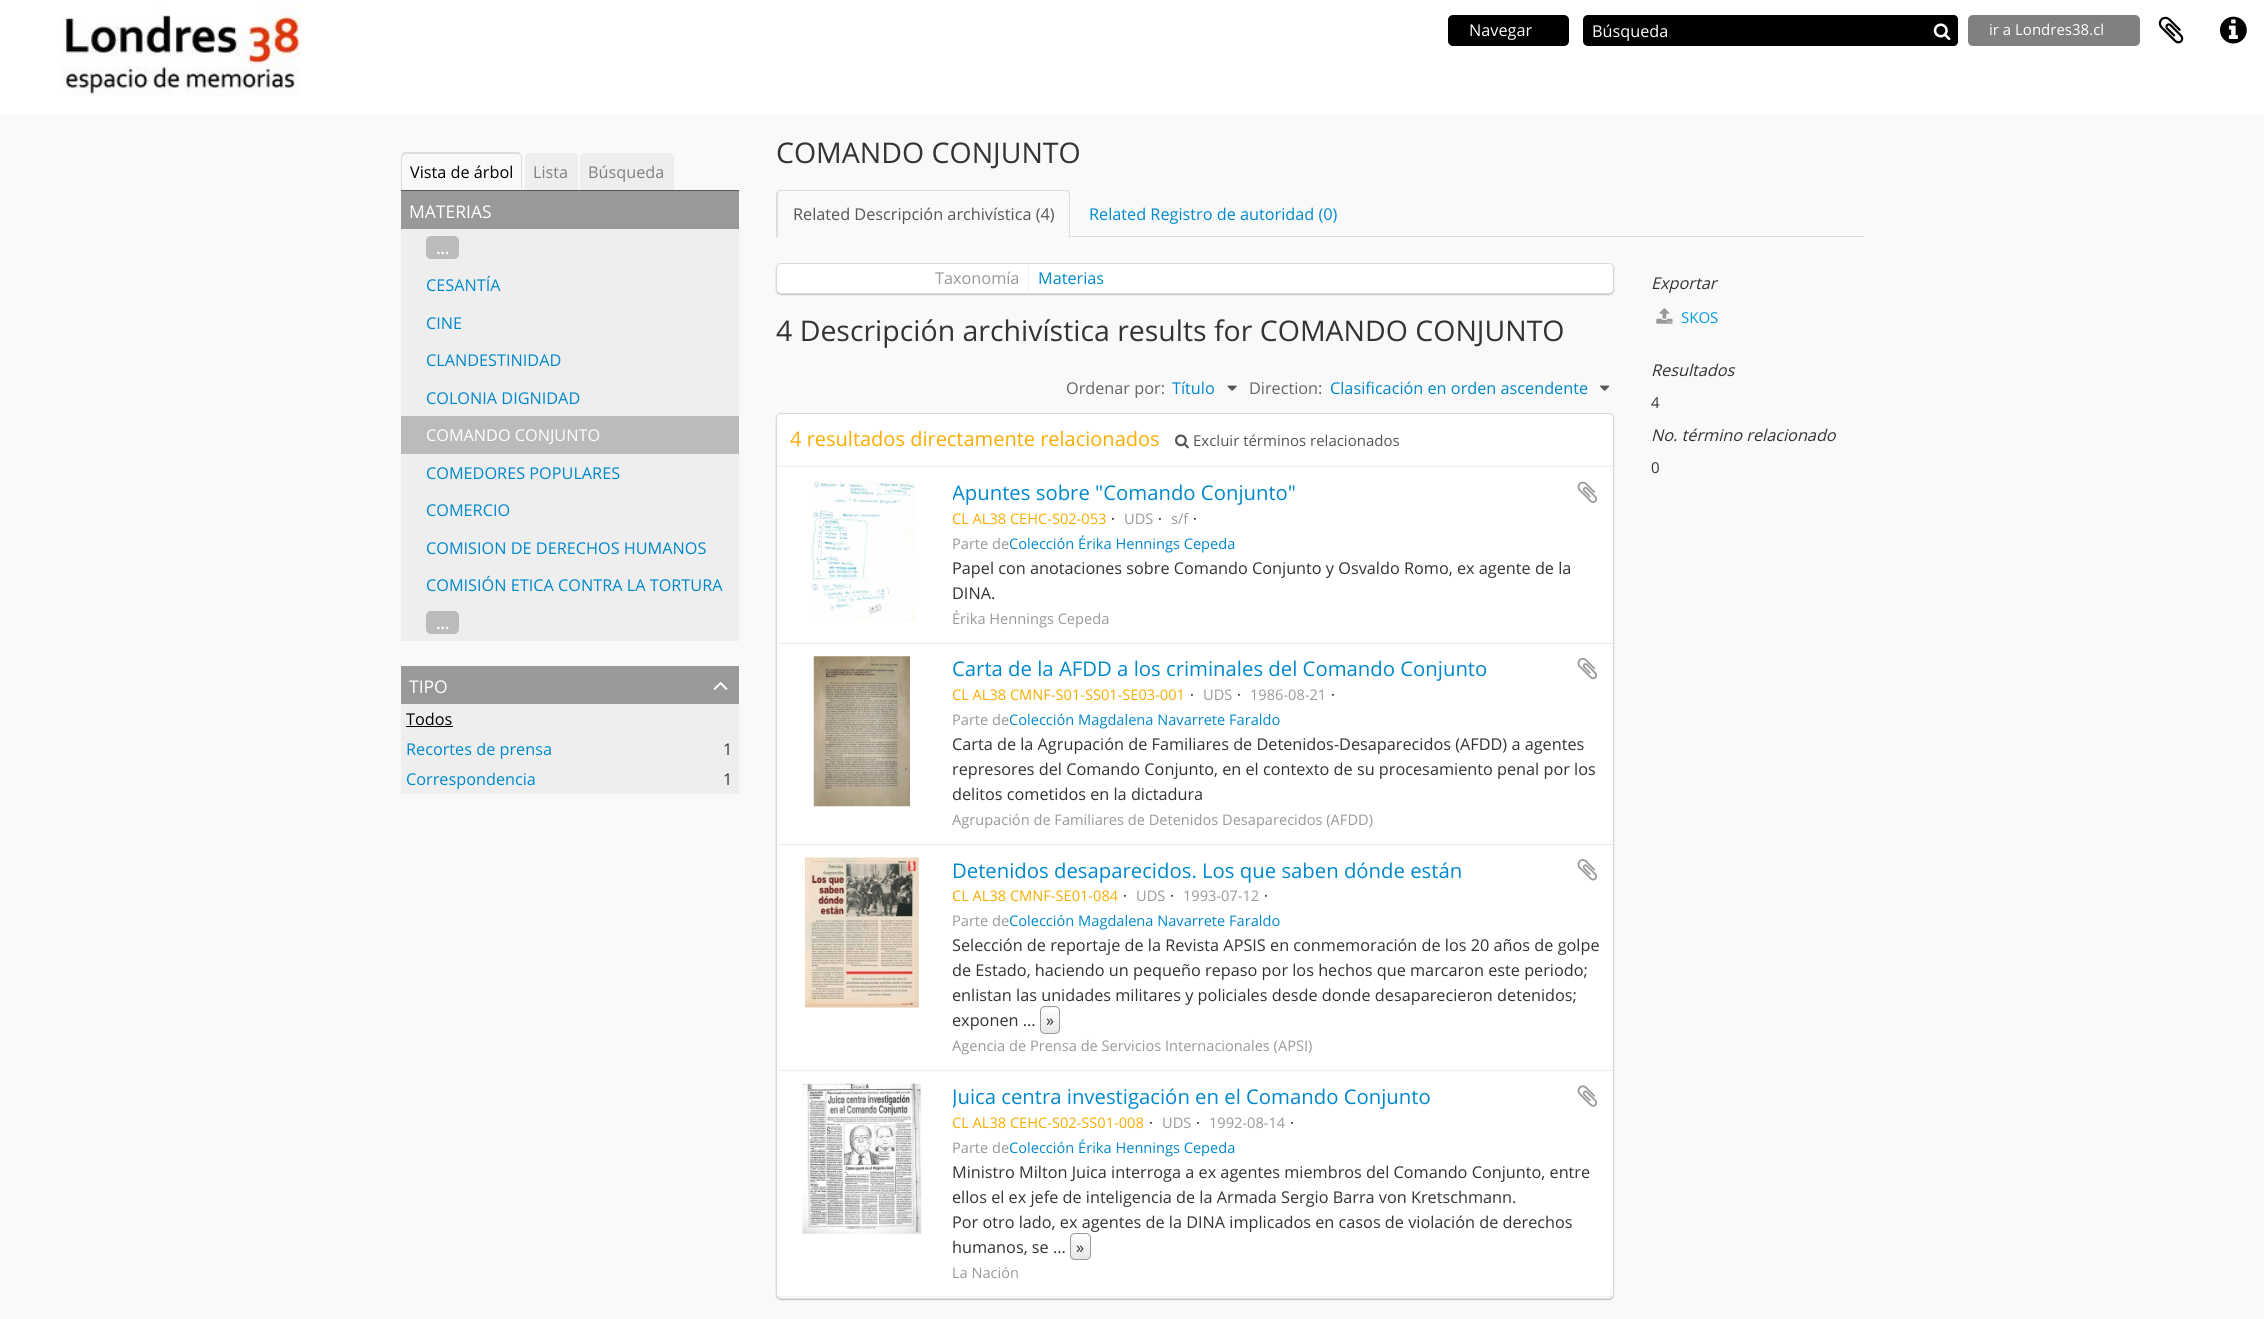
#include <cairo.h>
#include <math.h>
#include <stddef.h>


static void round_rect(cairo_t *cr, double x, double y, double w, double h, double r) {
    cairo_new_sub_path(cr);
    cairo_arc(cr, x + w - r, y + h - r, r, 0, M_PI / 2);
    cairo_arc(cr, x + r, y + h - r, r, M_PI / 2, M_PI);
    cairo_arc(cr, x + r, y + r, r, M_PI, 1.5 * M_PI);
    cairo_arc(cr, x + w - r, y + r, r, 1.5 * M_PI, 2 * M_PI);
    cairo_close_path(cr);
}

static void shadow(cairo_t *cr, double x, double y, double w, double h, double r, double blur, double alpha) {
    cairo_push_group_with_content(cr, CAIRO_CONTENT_ALPHA);
    cairo_set_operator(cr, CAIRO_OPERATOR_SOURCE);
    for (int i = 15; i >= -15 && fmin(w, h) + blur * i / 3 > 0; i -= 2) {
        double e = blur * i / 6;
        cairo_set_source_rgba(cr, 0, 0, 0, alpha * erfc((i - 1) / 8.5) / 2);
        round_rect(cr, x - e, y - e, w + 2 * e, h + 2 * e, fmax(0, fmin(r + e + blur * .6, fmin(w, h) / 2 + e)));
        cairo_fill(cr);
    }
    cairo_pattern_t *soft = cairo_pop_group(cr);
    cairo_mask(cr, soft);
    cairo_pattern_destroy(soft);
}

static void picture(cairo_t *cr, const char *path, double x, double y, double w, double h) {
    cairo_surface_t *image = cairo_image_surface_create_from_png(path);
    cairo_save(cr);
    cairo_set_source_surface(cr, image, x, y);
    cairo_rectangle(cr, x, y, w, h);
    cairo_fill(cr);
    cairo_restore(cr);
    cairo_surface_destroy(image);
}

int main(void) {
    cairo_surface_t *surface = cairo_image_surface_create(CAIRO_FORMAT_RGB24, 2264, 1319);
    cairo_t *cr = cairo_create(surface);
    cairo_font_options_t *options = cairo_font_options_create();
    cairo_font_options_set_hint_metrics(options, CAIRO_HINT_METRICS_OFF);
    cairo_font_options_set_hint_style(options, CAIRO_HINT_STYLE_NONE);
    cairo_set_font_options(cr, options);
    cairo_set_miter_limit(cr, 4);
    cairo_pattern_t *gradient;
    cairo_set_source_rgb(cr, 0.973, 0.973, 0.973);
    cairo_paint(cr);
    cairo_set_source_rgb(cr, 1, 1, 1);
    cairo_rectangle(cr, 0, 0, 2264, 115);
    cairo_fill(cr);
    picture(cr, "img1.png", 60, 6, 242, 90);
    cairo_set_source_rgb(cr, 0, 0, 0);
    round_rect(cr, 1448, 15, 121, 31, 5);
    cairo_fill(cr);
    cairo_select_font_face(cr, "Open Sans", CAIRO_FONT_SLANT_NORMAL, CAIRO_FONT_WEIGHT_NORMAL);
    cairo_set_font_size(cr, 16.25);
    cairo_set_source_rgb(cr, 1, 1, 1);
    cairo_move_to(cr, 1469, 36);
    cairo_show_text(cr, "Navegar");
    cairo_set_source_rgb(cr, 0, 0, 0);
    round_rect(cr, 1583, 15, 375, 31, 5);
    cairo_fill(cr);
    cairo_set_source_rgba(cr, 0, 0, 0, 0.07);
    cairo_new_path(cr);
    cairo_move_to(cr, 1588, 16);
    cairo_line_to(cr, 1952, 16);
    cairo_curve_to(cr, 1955, 16, 1958, 18, 1958, 21);
    cairo_line_to(cr, 1958, 20);
    cairo_curve_to(cr, 1958, 17, 1956, 15, 1953, 15);
    cairo_line_to(cr, 1588, 15);
    cairo_curve_to(cr, 1586, 15, 1584, 16, 1584, 18);
    cairo_curve_to(cr, 1585, 17, 1586, 16, 1588, 16);
    cairo_close_path(cr);
    cairo_fill(cr);
    cairo_set_source_rgb(cr, 1, 1, 1);
    cairo_move_to(cr, 1592, 37);
    cairo_show_text(cr, "Búsqueda");
    cairo_set_source_rgb(cr, 0, 0, 0);
    cairo_new_path(cr);
    cairo_move_to(cr, 1926, 15);
    cairo_line_to(cr, 1953, 15);
    cairo_curve_to(cr, 1956, 15, 1958, 17, 1958, 20);
    cairo_line_to(cr, 1958, 41);
    cairo_curve_to(cr, 1958, 44, 1956, 46, 1953, 46);
    cairo_line_to(cr, 1926, 46);
    cairo_close_path(cr);
    cairo_fill(cr);
    picture(cr, "img2.png", 1933, 23, 18, 17);
    cairo_set_source_rgb(cr, 0.502, 0.502, 0.502);
    round_rect(cr, 1968, 15, 172, 31, 5);
    cairo_fill(cr);
    cairo_set_font_size(cr, 15);
    cairo_set_source_rgb(cr, 1, 1, 1);
    cairo_move_to(cr, 1989, 35);
    cairo_show_text(cr, "ir a Londres38.cl");
    picture(cr, "img3.png", 2158, 16, 26, 28);
    picture(cr, "img4.png", 2220, 16, 27, 28);
    cairo_set_source_rgb(cr, 0.333, 0.333, 0.333);
    cairo_rectangle(cr, 401, 190, 338, 1);
    cairo_fill(cr);
    cairo_set_source_rgb(cr, 0.867, 0.867, 0.867);
    cairo_new_path(cr);
    cairo_move_to(cr, 406, 154);
    cairo_line_to(cr, 403, 155);
    cairo_line_to(cr, 402, 154);
    cairo_line_to(cr, 404, 152);
    cairo_line_to(cr, 519, 152);
    cairo_line_to(cr, 521, 154);
    cairo_line_to(cr, 520, 155);
    cairo_line_to(cr, 518, 154);
    cairo_close_path(cr);
    cairo_fill(cr);
    cairo_new_path(cr);
    cairo_move_to(cr, 521, 154);
    cairo_curve_to(cr, 521.5, 155, 522, 156.5, 522, 158);
    cairo_line_to(cr, 522, 189.5);
    cairo_line_to(cr, 521, 188.5);
    cairo_line_to(cr, 521, 158);
    cairo_curve_to(cr, 521, 156.5, 520.5, 155.5, 520, 155);
    cairo_close_path(cr);
    cairo_fill(cr);
    cairo_new_path(cr);
    cairo_move_to(cr, 401, 190);
    cairo_line_to(cr, 401, 156);
    cairo_line_to(cr, 402.5, 153.5);
    cairo_line_to(cr, 403.5, 154.5);
    cairo_curve_to(cr, 402.5, 155.5, 402, 156.5, 402, 158);
    cairo_line_to(cr, 402, 189);
    cairo_close_path(cr);
    cairo_fill(cr);
    cairo_set_font_size(cr, 16.25);
    cairo_set_source_rgb(cr, 0, 0, 0);
    cairo_move_to(cr, 410, 178);
    cairo_show_text(cr, "Vista de árbol");
    cairo_set_source_rgb(cr, 0.933, 0.933, 0.933);
    cairo_new_path(cr);
    cairo_move_to(cr, 530, 153);
    cairo_line_to(cr, 573, 153);
    cairo_curve_to(cr, 576, 153, 578, 155, 578, 158);
    cairo_line_to(cr, 578, 190);
    cairo_line_to(cr, 525, 190);
    cairo_line_to(cr, 525, 158);
    cairo_curve_to(cr, 525, 155, 527, 153, 530, 153);
    cairo_close_path(cr);
    cairo_fill(cr);
    cairo_set_source_rgb(cr, 0.502, 0.502, 0.502);
    cairo_move_to(cr, 533, 178);
    cairo_show_text(cr, "Lista");
    cairo_set_source_rgb(cr, 0.933, 0.933, 0.933);
    cairo_new_path(cr);
    cairo_move_to(cr, 585, 153);
    cairo_line_to(cr, 669, 153);
    cairo_curve_to(cr, 672, 153, 674, 155, 674, 158);
    cairo_line_to(cr, 674, 190);
    cairo_line_to(cr, 580, 190);
    cairo_line_to(cr, 580, 158);
    cairo_curve_to(cr, 580, 155, 582, 153, 585, 153);
    cairo_close_path(cr);
    cairo_fill(cr);
    cairo_set_source_rgb(cr, 0.502, 0.502, 0.502);
    cairo_move_to(cr, 588, 178);
    cairo_show_text(cr, "Búsqueda");
    cairo_set_source_rgb(cr, 0.933, 0.933, 0.933);
    cairo_rectangle(cr, 401, 229, 338, 412);
    cairo_fill(cr);
    cairo_set_source_rgb(cr, 0.6, 0.6, 0.6);
    cairo_rectangle(cr, 401, 191, 338, 38);
    cairo_fill(cr);
    cairo_set_font_size(cr, 17.5);
    cairo_set_source_rgb(cr, 1, 1, 1);
    cairo_move_to(cr, 409, 218);
    cairo_show_text(cr, "MATERIAS");
    cairo_set_source_rgb(cr, 0.733, 0.733, 0.733);
    round_rect(cr, 426, 236, 33, 23, 5);
    cairo_fill(cr);
    cairo_select_font_face(cr, "Open Sans", CAIRO_FONT_SLANT_NORMAL, CAIRO_FONT_WEIGHT_BOLD);
    cairo_set_font_size(cr, 16.25);
    cairo_set_source_rgb(cr, 1, 1, 1);
    cairo_move_to(cr, 436, 254);
    cairo_show_text(cr, "...");
    cairo_select_font_face(cr, "Open Sans", CAIRO_FONT_SLANT_NORMAL, CAIRO_FONT_WEIGHT_NORMAL);
    cairo_set_source_rgb(cr, 0, 0.533, 0.8);
    cairo_move_to(cr, 426, 291);
    cairo_show_text(cr, "CESANTÍA");
    cairo_move_to(cr, 426, 329);
    cairo_show_text(cr, "CINE");
    cairo_move_to(cr, 426, 366);
    cairo_show_text(cr, "CLANDESTINIDAD");
    cairo_move_to(cr, 426, 404);
    cairo_show_text(cr, "COLONIA DIGNIDAD");
    cairo_set_source_rgb(cr, 0.733, 0.733, 0.733);
    cairo_rectangle(cr, 401, 416, 338, 38);
    cairo_fill(cr);
    cairo_set_source_rgb(cr, 1, 1, 1);
    cairo_move_to(cr, 426, 441);
    cairo_show_text(cr, "COMANDO CONJUNTO");
    cairo_set_source_rgb(cr, 0, 0.533, 0.8);
    cairo_move_to(cr, 426, 479);
    cairo_show_text(cr, "COMEDORES POPULARES");
    cairo_move_to(cr, 426, 516);
    cairo_show_text(cr, "COMERCIO");
    cairo_move_to(cr, 426, 554);
    cairo_show_text(cr, "COMISION DE DERECHOS HUMANOS");
    cairo_move_to(cr, 426, 591);
    cairo_show_text(cr, "COMISIÓN ETICA CONTRA LA TORTURA");
    cairo_set_source_rgb(cr, 0.733, 0.733, 0.733);
    round_rect(cr, 426, 611, 33, 23, 5);
    cairo_fill(cr);
    cairo_select_font_face(cr, "Open Sans", CAIRO_FONT_SLANT_NORMAL, CAIRO_FONT_WEIGHT_BOLD);
    cairo_set_source_rgb(cr, 1, 1, 1);
    cairo_move_to(cr, 436, 629);
    cairo_show_text(cr, "...");
    cairo_set_source_rgb(cr, 0.6, 0.6, 0.6);
    cairo_rectangle(cr, 401, 666, 338, 38);
    cairo_fill(cr);
    cairo_select_font_face(cr, "Open Sans", CAIRO_FONT_SLANT_NORMAL, CAIRO_FONT_WEIGHT_NORMAL);
    cairo_set_font_size(cr, 17.5);
    cairo_set_source_rgb(cr, 1, 1, 1);
    cairo_move_to(cr, 409, 693);
    cairo_show_text(cr, "TIPO");
    picture(cr, "img5.png", 713, 682, 15, 8);
    cairo_set_source_rgb(cr, 0.933, 0.933, 0.933);
    cairo_rectangle(cr, 401, 704, 338, 90);
    cairo_fill(cr);
    cairo_set_font_size(cr, 16.25);
    cairo_set_source_rgb(cr, 0, 0, 0);
    cairo_move_to(cr, 406, 725);
    cairo_show_text(cr, "Todos");
    cairo_rectangle(cr, 406, 726, 47, 1);
    cairo_fill(cr);
    cairo_set_source_rgb(cr, 0, 0.533, 0.8);
    cairo_move_to(cr, 406, 755);
    cairo_show_text(cr, "Recortes de prensa");
    cairo_set_source_rgb(cr, 0.2, 0.2, 0.2);
    cairo_move_to(cr, 723, 755);
    cairo_show_text(cr, "1");
    cairo_set_source_rgb(cr, 0, 0.533, 0.8);
    cairo_move_to(cr, 406, 785);
    cairo_show_text(cr, "Correspondencia");
    cairo_set_source_rgb(cr, 0.2, 0.2, 0.2);
    cairo_move_to(cr, 723, 785);
    cairo_show_text(cr, "1");
    cairo_set_font_size(cr, 28.45);
    cairo_move_to(cr, 776, 163);
    cairo_show_text(cr, "COMANDO CONJUNTO");
    cairo_set_source_rgb(cr, 0.867, 0.867, 0.867);
    cairo_rectangle(cr, 1070, 236, 794, 1);
    cairo_fill(cr);
    cairo_new_path(cr);
    cairo_move_to(cr, 781, 190);
    cairo_curve_to(cr, 780, 190, 778, 190, 778, 191);
    cairo_line_to(cr, 779, 192);
    cairo_line_to(cr, 780, 191);
    cairo_line_to(cr, 1065, 191);
    cairo_line_to(cr, 1068, 192);
    cairo_line_to(cr, 1069, 191);
    cairo_curve_to(cr, 1068, 190, 1066, 190, 1065, 190);
    cairo_close_path(cr);
    cairo_fill(cr);
    cairo_new_path(cr);
    cairo_move_to(cr, 1070, 238);
    cairo_line_to(cr, 1070, 195);
    cairo_curve_to(cr, 1070, 194, 1070, 192, 1069, 191);
    cairo_line_to(cr, 1068, 192);
    cairo_curve_to(cr, 1068, 193, 1069, 194, 1069, 195);
    cairo_line_to(cr, 1069, 236);
    cairo_line_to(cr, 1068, 236);
    cairo_close_path(cr);
    cairo_fill(cr);
    cairo_new_path(cr);
    cairo_move_to(cr, 776, 238);
    cairo_line_to(cr, 776, 193);
    cairo_line_to(cr, 778, 191);
    cairo_line_to(cr, 779, 192);
    cairo_line_to(cr, 778, 195);
    cairo_line_to(cr, 778, 236);
    cairo_close_path(cr);
    cairo_fill(cr);
    cairo_set_font_size(cr, 16.25);
    cairo_set_source_rgb(cr, 0.333, 0.333, 0.333);
    cairo_move_to(cr, 793, 220);
    cairo_show_text(cr, "Related Descripción archivística (4)");
    cairo_set_source_rgb(cr, 0, 0.533, 0.8);
    cairo_move_to(cr, 1089, 220);
    cairo_show_text(cr, "Related Registro de autoridad (0)");
    cairo_set_source_rgb(cr, 0, 0, 0);
    shadow(cr, 776, 264, 838, 31, 5, 0.5, 0.2);
    cairo_set_source_rgb(cr, 1, 1, 1);
    round_rect(cr, 776.5, 263.5, 837, 30, 4.5);
    cairo_fill_preserve(cr);
    cairo_set_source_rgb(cr, 0.851, 0.851, 0.851);
    cairo_set_line_width(cr, 1);
    cairo_stroke(cr);
    cairo_set_source_rgb(cr, 0.949, 0.949, 0.949);
    cairo_rectangle(cr, 1028, 264, 1, 29);
    cairo_fill(cr);
    cairo_set_source_rgb(cr, 0.6, 0.6, 0.6);
    cairo_move_to(cr, 935, 284);
    cairo_show_text(cr, "Taxonomía");
    cairo_set_source_rgb(cr, 0, 0.533, 0.8);
    cairo_move_to(cr, 1038, 284);
    cairo_show_text(cr, "Materias");
    cairo_set_font_size(cr, 28.45);
    cairo_set_source_rgb(cr, 0.2, 0.2, 0.2);
    cairo_move_to(cr, 776, 341);
    cairo_show_text(cr, "4 Descripción archivística results for COMANDO CONJUNTO");
    cairo_set_font_size(cr, 16.25);
    cairo_set_source_rgb(cr, 0.4, 0.4, 0.4);
    cairo_move_to(cr, 1066, 394);
    cairo_show_text(cr, "Ordenar por:");
    cairo_set_source_rgb(cr, 0, 0.533, 0.8);
    cairo_move_to(cr, 1172, 394);
    cairo_show_text(cr, "Título");
    picture(cr, "img6.png", 1227, 385, 10, 6);
    cairo_set_source_rgb(cr, 0.4, 0.4, 0.4);
    cairo_move_to(cr, 1249, 394);
    cairo_show_text(cr, "Direction:");
    cairo_set_source_rgb(cr, 0, 0.533, 0.8);
    cairo_move_to(cr, 1330, 394);
    cairo_show_text(cr, "Clasificación en orden ascendente");
    picture(cr, "img7.png", 1600, 385, 10, 6);
    cairo_set_source_rgb(cr, 0, 0, 0);
    shadow(cr, 776, 414, 838, 886, 5, 0.5, 0.2);
    cairo_set_source_rgb(cr, 1, 1, 1);
    round_rect(cr, 776.5, 413.5, 837, 885, 4.5);
    cairo_fill_preserve(cr);
    cairo_set_source_rgb(cr, 0.851, 0.851, 0.851);
    cairo_stroke(cr);
    cairo_set_source_rgb(cr, 0.933, 0.933, 0.933);
    cairo_rectangle(cr, 778, 466, 835, 1);
    cairo_fill(cr);
    cairo_set_font_size(cr, 20);
    cairo_set_source_rgb(cr, 0.965, 0.675, 0);
    cairo_move_to(cr, 790, 446);
    cairo_show_text(cr, "4 resultados directamente relacionados");
    picture(cr, "img8.png", 1175, 434, 14, 15);
    cairo_set_font_size(cr, 15);
    cairo_set_source_rgb(cr, 0.333, 0.333, 0.333);
    cairo_move_to(cr, 1193, 446);
    cairo_show_text(cr, "Excluir términos relacionados");
    cairo_set_source_rgb(cr, 0.933, 0.933, 0.933);
    cairo_rectangle(cr, 778, 643, 835, 1);
    cairo_fill(cr);
    picture(cr, "img9.png", 809, 480, 107, 142);
    cairo_save(cr);
    cairo_rectangle(cr, 953, 480, 616, 25);
    cairo_clip(cr);
    cairo_set_font_size(cr, 20.3);
    cairo_set_source_rgb(cr, 0, 0.533, 0.8);
    cairo_move_to(cr, 952, 500);
    cairo_show_text(cr, "Apuntes sobre \"Comando Conjunto\"");
    cairo_restore(cr);
    picture(cr, "img10.png", 1577, 481, 20, 22);
    cairo_set_font_size(cr, 14.6);
    cairo_set_source_rgb(cr, 0.965, 0.675, 0);
    cairo_move_to(cr, 952, 524);
    cairo_show_text(cr, "CL AL38 CEHC-S02-053");
    cairo_set_source_rgb(cr, 0, 0, 0);
    cairo_move_to(cr, 1111, 524);
    cairo_show_text(cr, "·");
    cairo_set_source_rgb(cr, 0.6, 0.6, 0.6);
    cairo_move_to(cr, 1124, 524);
    cairo_show_text(cr, "UDS");
    cairo_set_source_rgb(cr, 0, 0, 0);
    cairo_move_to(cr, 1158, 524);
    cairo_show_text(cr, "·");
    cairo_set_source_rgb(cr, 0.6, 0.6, 0.6);
    cairo_move_to(cr, 1171, 524);
    cairo_show_text(cr, "s/f");
    cairo_set_source_rgb(cr, 0, 0, 0);
    cairo_move_to(cr, 1193, 524);
    cairo_show_text(cr, "·");
    cairo_set_source_rgb(cr, 0.6, 0.6, 0.6);
    cairo_move_to(cr, 952, 549);
    cairo_show_text(cr, "Parte de");
    cairo_set_source_rgb(cr, 0, 0.533, 0.8);
    cairo_move_to(cr, 1009, 549);
    cairo_show_text(cr, "Colección Érika Hennings Cepeda");
    cairo_set_font_size(cr, 16.25);
    cairo_set_source_rgb(cr, 0.2, 0.2, 0.2);
    cairo_move_to(cr, 952, 574);
    cairo_show_text(cr, "Papel con anotaciones sobre Comando Conjunto y Osvaldo Romo, ex agente de la");
    cairo_move_to(cr, 952, 599);
    cairo_show_text(cr, "DINA.");
    cairo_set_font_size(cr, 14.6);
    cairo_set_source_rgb(cr, 0.6, 0.6, 0.6);
    cairo_move_to(cr, 952, 624);
    cairo_show_text(cr, "Érika Hennings Cepeda");
    cairo_set_source_rgb(cr, 0.933, 0.933, 0.933);
    cairo_rectangle(cr, 778, 844, 835, 1);
    cairo_fill(cr);
    picture(cr, "img11.png", 813, 656, 97, 151);
    cairo_set_font_size(cr, 20.3);
    cairo_set_source_rgb(cr, 0, 0.533, 0.8);
    cairo_move_to(cr, 952, 676);
    cairo_show_text(cr, "Carta de la AFDD a los criminales del Comando Conjunto");
    picture(cr, "img12.png", 1577, 657, 21, 23);
    cairo_set_font_size(cr, 14.6);
    cairo_set_source_rgb(cr, 0.965, 0.675, 0);
    cairo_move_to(cr, 952, 700);
    cairo_show_text(cr, "CL AL38 CMNF-S01-SS01-SE03-001");
    cairo_set_source_rgb(cr, 0, 0, 0);
    cairo_move_to(cr, 1190, 700);
    cairo_show_text(cr, "·");
    cairo_set_source_rgb(cr, 0.6, 0.6, 0.6);
    cairo_move_to(cr, 1203, 700);
    cairo_show_text(cr, "UDS");
    cairo_set_source_rgb(cr, 0, 0, 0);
    cairo_move_to(cr, 1237, 700);
    cairo_show_text(cr, "·");
    cairo_set_source_rgb(cr, 0.6, 0.6, 0.6);
    cairo_move_to(cr, 1250, 700);
    cairo_show_text(cr, "1986-08-21");
    cairo_set_source_rgb(cr, 0, 0, 0);
    cairo_move_to(cr, 1331, 700);
    cairo_show_text(cr, "·");
    cairo_set_source_rgb(cr, 0.6, 0.6, 0.6);
    cairo_move_to(cr, 952, 725);
    cairo_show_text(cr, "Parte de");
    cairo_set_source_rgb(cr, 0, 0.533, 0.8);
    cairo_move_to(cr, 1009, 725);
    cairo_show_text(cr, "Colección Magdalena Navarrete Faraldo");
    cairo_set_font_size(cr, 16.25);
    cairo_set_source_rgb(cr, 0.2, 0.2, 0.2);
    cairo_move_to(cr, 952, 750);
    cairo_show_text(cr, "Carta de la Agrupación de Familiares de Detenidos-Desaparecidos (AFDD) a agentes");
    cairo_move_to(cr, 952, 775);
    cairo_show_text(cr, "represores del Comando Conjunto, en el contexto de su procesamiento penal por los");
    cairo_move_to(cr, 952, 800);
    cairo_show_text(cr, "delitos cometidos en la dictadura");
    cairo_set_font_size(cr, 14.6);
    cairo_set_source_rgb(cr, 0.6, 0.6, 0.6);
    cairo_move_to(cr, 952, 825);
    cairo_show_text(cr, "Agrupación de Familiares de Detenidos Desaparecidos (AFDD)");
    cairo_set_source_rgb(cr, 0.933, 0.933, 0.933);
    cairo_rectangle(cr, 778, 1070, 835, 1);
    cairo_fill(cr);
    picture(cr, "img13.png", 805, 857, 114, 151);
    cairo_set_font_size(cr, 20.3);
    cairo_set_source_rgb(cr, 0, 0.533, 0.8);
    cairo_move_to(cr, 952, 878);
    cairo_show_text(cr, "Detenidos desaparecidos. Los que saben dónde están");
    picture(cr, "img14.png", 1577, 859, 21, 22);
    cairo_set_font_size(cr, 14.6);
    cairo_set_source_rgb(cr, 0.965, 0.675, 0);
    cairo_move_to(cr, 952, 901);
    cairo_show_text(cr, "CL AL38 CMNF-SE01-084");
    cairo_set_source_rgb(cr, 0, 0, 0);
    cairo_move_to(cr, 1123, 901);
    cairo_show_text(cr, "·");
    cairo_set_source_rgb(cr, 0.6, 0.6, 0.6);
    cairo_move_to(cr, 1136, 901);
    cairo_show_text(cr, "UDS");
    cairo_set_source_rgb(cr, 0, 0, 0);
    cairo_move_to(cr, 1170, 901);
    cairo_show_text(cr, "·");
    cairo_set_source_rgb(cr, 0.6, 0.6, 0.6);
    cairo_move_to(cr, 1183, 901);
    cairo_show_text(cr, "1993-07-12");
    cairo_set_source_rgb(cr, 0, 0, 0);
    cairo_move_to(cr, 1264, 901);
    cairo_show_text(cr, "·");
    cairo_set_source_rgb(cr, 0.6, 0.6, 0.6);
    cairo_move_to(cr, 952, 926);
    cairo_show_text(cr, "Parte de");
    cairo_set_source_rgb(cr, 0, 0.533, 0.8);
    cairo_move_to(cr, 1009, 926);
    cairo_show_text(cr, "Colección Magdalena Navarrete Faraldo");
    cairo_set_font_size(cr, 16.25);
    cairo_set_source_rgb(cr, 0.2, 0.2, 0.2);
    cairo_move_to(cr, 952, 951);
    cairo_show_text(cr, "Selección de reportaje de la Revista APSIS en conmemoración de los 20 años de golpe");
    cairo_move_to(cr, 952, 976);
    cairo_show_text(cr, "de Estado, haciendo un pequeño repaso por los hechos que marcaron este periodo;");
    cairo_move_to(cr, 952, 1001);
    cairo_show_text(cr, "enlistan las unidades militares y policiales desde donde desaparecieron detenidos;");
    cairo_move_to(cr, 952, 1026);
    cairo_show_text(cr, "exponen ...");
    cairo_set_source_rgb(cr, 0.961, 0.961, 0.961);
    round_rect(cr, 1040, 1006, 20, 28, 5);
    cairo_fill(cr);
    cairo_save(cr);
    round_rect(cr, 1040, 1006, 20, 28, 5);
    cairo_clip(cr);
    gradient = cairo_pattern_create_linear(1050, 1008, 1050, 1033);
    cairo_pattern_add_color_stop_rgba(gradient, 0, 1, 1, 1, 1);
    cairo_pattern_add_color_stop_rgba(gradient, 1, 0.902, 0.902, 0.902, 1);
    cairo_set_source(cr, gradient);
    cairo_pattern_destroy(gradient);
    cairo_rectangle(cr, 1040, 1008, 20, 25);
    cairo_fill(cr);
    cairo_restore(cr);
    round_rect(cr, 1040.5, 1006.5, 19, 27, 4.5);
    cairo_set_source_rgb(cr, 0.6, 0.6, 0.6);
    cairo_stroke(cr);
    cairo_set_source_rgb(cr, 0.2, 0.2, 0.2);
    cairo_move_to(cr, 1046, 1026);
    cairo_show_text(cr, "»");
    cairo_set_font_size(cr, 14.6);
    cairo_set_source_rgb(cr, 0.6, 0.6, 0.6);
    cairo_move_to(cr, 952, 1051);
    cairo_show_text(cr, "Agencia de Prensa de Servicios Internacionales (APSI)");
    cairo_set_source_rgb(cr, 0.933, 0.933, 0.933);
    cairo_rectangle(cr, 778, 1296, 835, 1);
    cairo_fill(cr);
    picture(cr, "img15.png", 802, 1083, 120, 151);
    cairo_save(cr);
    cairo_rectangle(cr, 953, 1084, 616, 25);
    cairo_clip(cr);
    cairo_set_font_size(cr, 20.3);
    cairo_set_source_rgb(cr, 0, 0.533, 0.8);
    cairo_move_to(cr, 952, 1104);
    cairo_show_text(cr, "Juica centra investigación en el Comando Conjunto");
    cairo_restore(cr);
    picture(cr, "img16.png", 1577, 1085, 21, 22);
    cairo_set_source_rgb(cr, 0.965, 0.675, 0);
    cairo_move_to(cr, 952, 1128);
    cairo_show_text(cr, "CL AL38 CEHC-S02-SS01-008");
    cairo_set_source_rgb(cr, 0, 0, 0);
    cairo_move_to(cr, 1149, 1128);
    cairo_show_text(cr, "·");
    cairo_set_source_rgb(cr, 0.6, 0.6, 0.6);
    cairo_move_to(cr, 1162, 1128);
    cairo_show_text(cr, "UDS");
    cairo_set_source_rgb(cr, 0, 0, 0);
    cairo_move_to(cr, 1196, 1128);
    cairo_show_text(cr, "·");
    cairo_set_source_rgb(cr, 0.6, 0.6, 0.6);
    cairo_move_to(cr, 1209, 1128);
    cairo_show_text(cr, "1992-08-14");
    cairo_set_source_rgb(cr, 0, 0, 0);
    cairo_move_to(cr, 1290, 1128);
    cairo_show_text(cr, "·");
    cairo_set_source_rgb(cr, 0.6, 0.6, 0.6);
    cairo_move_to(cr, 952, 1153);
    cairo_show_text(cr, "Parte de");
    cairo_set_source_rgb(cr, 0, 0.533, 0.8);
    cairo_move_to(cr, 1009, 1153);
    cairo_show_text(cr, "Colección Érika Hennings Cepeda");
    cairo_set_font_size(cr, 16.25);
    cairo_set_source_rgb(cr, 0.2, 0.2, 0.2);
    cairo_move_to(cr, 952, 1178);
    cairo_show_text(cr, "Ministro Milton Juica interroga a ex agentes miembros del Comando Conjunto, entre");
    cairo_move_to(cr, 952, 1203);
    cairo_show_text(cr, "ellos el ex jefe de inteligencia de la Armada Sergio Barra von Kretschmann.");
    cairo_move_to(cr, 952, 1228);
    cairo_show_text(cr, "Por otro lado, ex agentes de la DINA implicados en casos de violación de derechos");
    cairo_move_to(cr, 952, 1253);
    cairo_show_text(cr, "humanos, se ...");
    cairo_save(cr);
    round_rect(cr, 1070, 1233, 21, 27, 5);
    cairo_clip(cr);
    gradient = cairo_pattern_create_linear(1081, 1234, 1081, 1259);
    cairo_pattern_add_color_stop_rgba(gradient, 0, 1, 1, 1, 1);
    cairo_pattern_add_color_stop_rgba(gradient, 1, 0.902, 0.902, 0.902, 1);
    cairo_set_source(cr, gradient);
    cairo_pattern_destroy(gradient);
    cairo_rectangle(cr, 1070, 1234, 21, 25);
    cairo_fill(cr);
    cairo_restore(cr);
    round_rect(cr, 1070.5, 1233.5, 20, 26, 4.5);
    cairo_set_source_rgb(cr, 0.6, 0.6, 0.6);
    cairo_stroke(cr);
    cairo_set_source_rgb(cr, 0.2, 0.2, 0.2);
    cairo_move_to(cr, 1076, 1253);
    cairo_show_text(cr, "»");
    cairo_set_font_size(cr, 14.6);
    cairo_set_source_rgb(cr, 0.6, 0.6, 0.6);
    cairo_move_to(cr, 952, 1278);
    cairo_show_text(cr, "La Nación");
    cairo_select_font_face(cr, "Open Sans", CAIRO_FONT_SLANT_ITALIC, CAIRO_FONT_WEIGHT_NORMAL);
    cairo_set_font_size(cr, 16.25);
    cairo_set_source_rgb(cr, 0.2, 0.2, 0.2);
    cairo_move_to(cr, 1651, 289);
    cairo_show_text(cr, "Exportar");
    picture(cr, "img17.png", 1656, 308, 17, 16);
    cairo_select_font_face(cr, "Open Sans", CAIRO_FONT_SLANT_NORMAL, CAIRO_FONT_WEIGHT_NORMAL);
    cairo_set_font_size(cr, 15);
    cairo_set_source_rgb(cr, 0.016, 0.612, 0.859);
    cairo_move_to(cr, 1681, 323);
    cairo_show_text(cr, "SKOS");
    cairo_select_font_face(cr, "Open Sans", CAIRO_FONT_SLANT_ITALIC, CAIRO_FONT_WEIGHT_NORMAL);
    cairo_set_font_size(cr, 16.25);
    cairo_set_source_rgb(cr, 0.2, 0.2, 0.2);
    cairo_move_to(cr, 1651, 376);
    cairo_show_text(cr, "Resultados");
    cairo_select_font_face(cr, "Open Sans", CAIRO_FONT_SLANT_NORMAL, CAIRO_FONT_WEIGHT_NORMAL);
    cairo_set_font_size(cr, 15);
    cairo_move_to(cr, 1651, 408);
    cairo_show_text(cr, "4");
    cairo_select_font_face(cr, "Open Sans", CAIRO_FONT_SLANT_ITALIC, CAIRO_FONT_WEIGHT_NORMAL);
    cairo_set_font_size(cr, 16.25);
    cairo_move_to(cr, 1651, 441);
    cairo_show_text(cr, "No. término relacionado");
    cairo_select_font_face(cr, "Open Sans", CAIRO_FONT_SLANT_NORMAL, CAIRO_FONT_WEIGHT_NORMAL);
    cairo_set_font_size(cr, 15);
    cairo_move_to(cr, 1651, 473);
    cairo_show_text(cr, "0");
    cairo_surface_write_to_png(surface, "page.png");
    cairo_font_options_destroy(options);
    cairo_destroy(cr);
    cairo_surface_destroy(surface);
    return 0;
}
